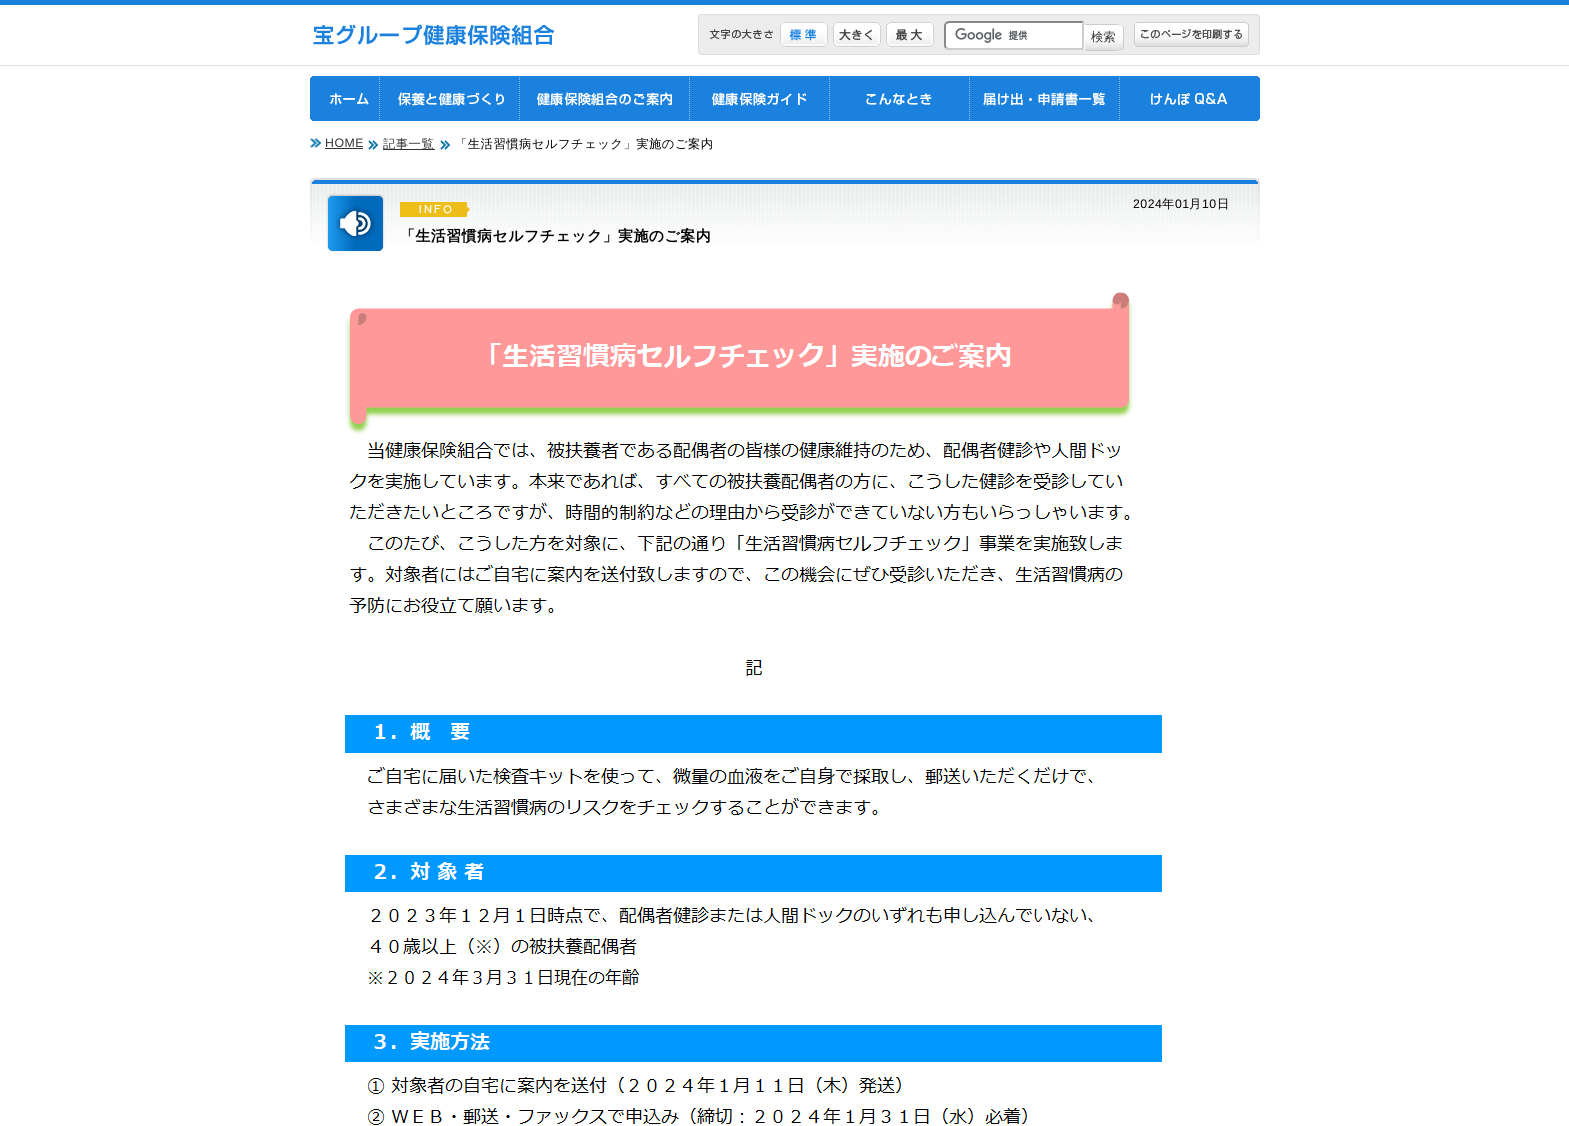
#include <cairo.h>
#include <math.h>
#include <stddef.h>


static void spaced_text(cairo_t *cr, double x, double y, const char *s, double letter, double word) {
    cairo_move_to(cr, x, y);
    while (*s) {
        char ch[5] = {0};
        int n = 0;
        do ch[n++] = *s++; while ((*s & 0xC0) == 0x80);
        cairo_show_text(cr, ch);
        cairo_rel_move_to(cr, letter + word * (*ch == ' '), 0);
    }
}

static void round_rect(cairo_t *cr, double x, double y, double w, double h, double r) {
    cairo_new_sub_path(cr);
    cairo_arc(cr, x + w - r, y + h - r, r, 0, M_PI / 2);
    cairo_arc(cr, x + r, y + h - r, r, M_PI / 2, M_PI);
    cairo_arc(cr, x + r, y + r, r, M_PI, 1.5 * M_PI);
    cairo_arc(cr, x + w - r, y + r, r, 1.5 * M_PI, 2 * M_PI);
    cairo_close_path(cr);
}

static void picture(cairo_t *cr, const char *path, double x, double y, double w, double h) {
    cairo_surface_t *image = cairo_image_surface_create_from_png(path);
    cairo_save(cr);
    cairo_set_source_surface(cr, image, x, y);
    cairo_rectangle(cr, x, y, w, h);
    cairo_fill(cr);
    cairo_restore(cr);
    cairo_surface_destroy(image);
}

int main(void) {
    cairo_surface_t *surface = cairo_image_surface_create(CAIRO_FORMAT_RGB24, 1569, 1126);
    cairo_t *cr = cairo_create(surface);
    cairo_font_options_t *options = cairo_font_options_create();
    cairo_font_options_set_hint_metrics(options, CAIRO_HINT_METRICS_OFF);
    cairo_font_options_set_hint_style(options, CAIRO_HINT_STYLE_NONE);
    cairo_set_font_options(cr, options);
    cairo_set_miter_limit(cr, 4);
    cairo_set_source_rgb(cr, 1, 1, 1);
    cairo_paint(cr);
    cairo_set_source_rgb(cr, 0.102, 0.506, 0.875);
    cairo_rectangle(cr, 0, 0, 1569, 5);
    cairo_fill(cr);
    cairo_set_source_rgb(cr, 0.871, 0.871, 0.871);
    cairo_rectangle(cr, 0, 65, 1569, 1);
    cairo_fill(cr);
    picture(cr, "img1.png", 313, 24, 242, 21);
    cairo_set_source_rgb(cr, 0.925, 0.925, 0.925);
    round_rect(cr, 698.5, 14.5, 561, 40, 2.5);
    cairo_fill_preserve(cr);
    cairo_set_source_rgb(cr, 0.871, 0.871, 0.871);
    cairo_set_line_width(cr, 1);
    cairo_stroke(cr);
    picture(cr, "img2.png", 709, 29, 64, 10);
    picture(cr, "img3.png", 780, 22, 48, 25);
    picture(cr, "img4.png", 833, 22, 48, 25);
    picture(cr, "img5.png", 886, 22, 48, 25);
    cairo_set_source_rgb(cr, 1, 1, 1);
    cairo_new_path(cr);
    cairo_move_to(cr, 949, 21);
    cairo_line_to(cr, 1084, 21);
    cairo_line_to(cr, 1084, 50);
    cairo_line_to(cr, 949, 50);
    cairo_curve_to(cr, 946, 50, 944, 48, 944, 45);
    cairo_line_to(cr, 944, 26);
    cairo_curve_to(cr, 944, 23, 946, 21, 949, 21);
    cairo_close_path(cr);
    cairo_fill(cr);
    picture(cr, "img6.png", 955, 28, 73, 15);
    cairo_set_source_rgb(cr, 0.533, 0.533, 0.533);
    cairo_new_path(cr);
    cairo_move_to(cr, 949, 21);
    cairo_curve_to(cr, 948, 21, 946, 22, 945, 22);
    cairo_line_to(cr, 947, 24);
    cairo_line_to(cr, 949, 23);
    cairo_line_to(cr, 1082, 23);
    cairo_line_to(cr, 1084, 21);
    cairo_close_path(cr);
    cairo_fill(cr);
    cairo_set_source_rgb(cr, 0.8, 0.8, 0.8);
    cairo_new_path(cr);
    cairo_move_to(cr, 1084, 21);
    cairo_line_to(cr, 1082, 23);
    cairo_line_to(cr, 1082, 48);
    cairo_line_to(cr, 1084, 50);
    cairo_close_path(cr);
    cairo_fill(cr);
    cairo_new_path(cr);
    cairo_move_to(cr, 1084, 50);
    cairo_line_to(cr, 1082, 48);
    cairo_line_to(cr, 949, 48);
    cairo_line_to(cr, 947, 47);
    cairo_line_to(cr, 945, 49);
    cairo_curve_to(cr, 946, 50, 948, 50, 949, 50);
    cairo_close_path(cr);
    cairo_fill(cr);
    cairo_set_source_rgb(cr, 0.533, 0.533, 0.533);
    cairo_new_path(cr);
    cairo_move_to(cr, 944, 26);
    cairo_line_to(cr, 944, 45);
    cairo_curve_to(cr, 944, 46.5, 944.5, 48, 945.5, 48.5);
    cairo_line_to(cr, 947, 47);
    cairo_curve_to(cr, 946, 47, 946, 46, 946, 45);
    cairo_line_to(cr, 946, 26);
    cairo_curve_to(cr, 946, 25, 946, 24, 947, 24);
    cairo_line_to(cr, 945.5, 22.5);
    cairo_curve_to(cr, 944.5, 23, 944, 24.5, 944, 26);
    cairo_close_path(cr);
    cairo_fill(cr);
    cairo_set_source_rgb(cr, 1, 1, 1);
    cairo_new_path(cr);
    cairo_move_to(cr, 1084, 24);
    cairo_line_to(cr, 1119, 24);
    cairo_curve_to(cr, 1122, 24, 1124, 26, 1124, 29);
    cairo_line_to(cr, 1124, 46);
    cairo_curve_to(cr, 1124, 49, 1122, 51, 1119, 51);
    cairo_line_to(cr, 1084, 51);
    cairo_close_path(cr);
    cairo_fill(cr);
    picture(cr, "img7.png", 1085, 25, 39, 25);
    cairo_set_source_rgb(cr, 0.8, 0.8, 0.8);
    cairo_new_path(cr);
    cairo_move_to(cr, 1084, 24);
    cairo_line_to(cr, 1085, 25);
    cairo_line_to(cr, 1113, 25);
    cairo_curve_to(cr, 1118, 25, 1120.5, 25, 1122, 26);
    cairo_line_to(cr, 1122.5, 25.5);
    cairo_curve_to(cr, 1121, 24.5, 1118, 24, 1113, 24);
    cairo_close_path(cr);
    cairo_fill(cr);
    cairo_new_path(cr);
    cairo_move_to(cr, 1124, 46.5);
    cairo_curve_to(cr, 1124, 48, 1123.5, 49, 1122.5, 49.5);
    cairo_line_to(cr, 1122, 49);
    cairo_curve_to(cr, 1122.5, 48.5, 1123, 47.5, 1123, 46.5);
    cairo_line_to(cr, 1123, 29);
    cairo_curve_to(cr, 1123, 28, 1122.5, 27, 1122, 26);
    cairo_line_to(cr, 1122.5, 25.5);
    cairo_curve_to(cr, 1123.5, 26, 1124, 27, 1124, 28.5);
    cairo_close_path(cr);
    cairo_fill(cr);
    cairo_new_path(cr);
    cairo_move_to(cr, 1113, 51);
    cairo_curve_to(cr, 1118.5, 51, 1121, 50.5, 1122.5, 49.5);
    cairo_line_to(cr, 1122, 49);
    cairo_curve_to(cr, 1120.5, 50, 1118, 50, 1113, 50);
    cairo_line_to(cr, 1085, 50);
    cairo_line_to(cr, 1084, 51);
    cairo_close_path(cr);
    cairo_fill(cr);
    cairo_set_source_rgb(cr, 1, 1, 1);
    cairo_new_path(cr);
    cairo_move_to(cr, 1084, 24);
    cairo_line_to(cr, 1084, 51);
    cairo_line_to(cr, 1085, 50);
    cairo_line_to(cr, 1085, 25);
    cairo_close_path(cr);
    cairo_fill(cr);
    cairo_select_font_face(cr, "WenQuanYi Zen Hei Medium", CAIRO_FONT_SLANT_NORMAL, CAIRO_FONT_WEIGHT_NORMAL);
    cairo_set_font_size(cr, 12.3);
    cairo_set_source_rgb(cr, 0.2, 0.2, 0.2);
    cairo_move_to(cr, 1091, 41);
    cairo_show_text(cr, "検索");
    picture(cr, "img8.png", 1134, 22, 115, 25);
    picture(cr, "img9.png", 310, 76, 70, 45);
    picture(cr, "img10.png", 380, 76, 140, 45);
    picture(cr, "img11.png", 520, 76, 170, 45);
    picture(cr, "img12.png", 690, 76, 140, 45);
    picture(cr, "img13.png", 830, 76, 140, 45);
    picture(cr, "img14.png", 970, 76, 150, 45);
    picture(cr, "img15.png", 1120, 76, 140, 45);
    picture(cr, "img16.png", 310, 138, 11, 10);
    cairo_select_font_face(cr, "Liberation Sans", CAIRO_FONT_SLANT_NORMAL, CAIRO_FONT_WEIGHT_NORMAL);
    spaced_text(cr, 325, 147, "HOME", 0.5, 0);
    cairo_rectangle(cr, 325, 148, 38, 1);
    cairo_fill(cr);
    picture(cr, "img17.png", 368, 140, 10, 10);
    cairo_rectangle(cr, 383, 149, 52, 1);
    cairo_fill(cr);
    cairo_select_font_face(cr, "WenQuanYi Zen Hei Medium", CAIRO_FONT_SLANT_NORMAL, CAIRO_FONT_WEIGHT_NORMAL);
    spaced_text(cr, 383, 148, "記事一覧", 0.5, 0);
    picture(cr, "img17.png", 440, 140, 10, 10);
    cairo_set_source_rgb(cr, 0, 0, 0);
    spaced_text(cr, 455, 148, "「生活習慣病セルフチェック」実施のご案内", 0.5, 0);
    picture(cr, "img18.png", 310, 178, 950, 64);
    picture(cr, "img19.png", 326, 193, 59, 59);
    cairo_select_font_face(cr, "Liberation Sans", CAIRO_FONT_SLANT_NORMAL, CAIRO_FONT_WEIGHT_NORMAL);
    spaced_text(cr, 1133, 208, "2024", 0.5, 0);
    cairo_select_font_face(cr, "WenQuanYi Zen Hei Medium", CAIRO_FONT_SLANT_NORMAL, CAIRO_FONT_WEIGHT_NORMAL);
    spaced_text(cr, 1162, 208, "年", 0.5, 0);
    cairo_select_font_face(cr, "Liberation Sans", CAIRO_FONT_SLANT_NORMAL, CAIRO_FONT_WEIGHT_NORMAL);
    spaced_text(cr, 1175, 208, "01", 0.5, 0);
    cairo_select_font_face(cr, "WenQuanYi Zen Hei Medium", CAIRO_FONT_SLANT_NORMAL, CAIRO_FONT_WEIGHT_NORMAL);
    spaced_text(cr, 1189, 208, "月", 0.5, 0);
    cairo_select_font_face(cr, "Liberation Sans", CAIRO_FONT_SLANT_NORMAL, CAIRO_FONT_WEIGHT_NORMAL);
    spaced_text(cr, 1202, 208, "10", 0.5, 0);
    cairo_select_font_face(cr, "WenQuanYi Zen Hei Medium", CAIRO_FONT_SLANT_NORMAL, CAIRO_FONT_WEIGHT_NORMAL);
    spaced_text(cr, 1217, 208, "日", 0.5, 0);
    picture(cr, "img20.png", 400, 202, 70, 15);
    cairo_select_font_face(cr, "WenQuanYi Zen Hei", CAIRO_FONT_SLANT_NORMAL, CAIRO_FONT_WEIGHT_BOLD);
    cairo_set_font_size(cr, 14.9);
    spaced_text(cr, 400, 241, "「生活習慣病セルフチェック」実施のご案内", 0.5, 0);
    picture(cr, "img21.png", 345, 292, 817, 833);
    cairo_surface_write_to_png(surface, "page.png");
    cairo_font_options_destroy(options);
    cairo_destroy(cr);
    cairo_surface_destroy(surface);
    return 0;
}
